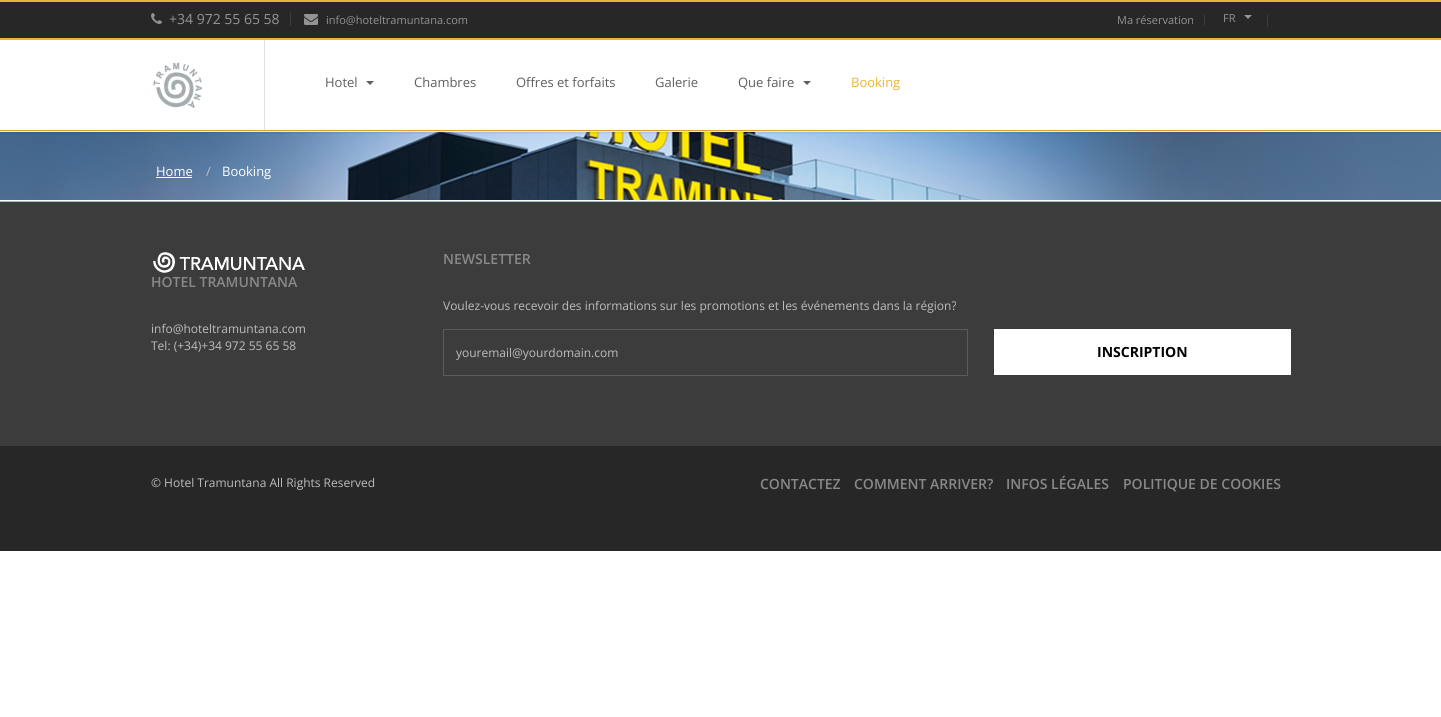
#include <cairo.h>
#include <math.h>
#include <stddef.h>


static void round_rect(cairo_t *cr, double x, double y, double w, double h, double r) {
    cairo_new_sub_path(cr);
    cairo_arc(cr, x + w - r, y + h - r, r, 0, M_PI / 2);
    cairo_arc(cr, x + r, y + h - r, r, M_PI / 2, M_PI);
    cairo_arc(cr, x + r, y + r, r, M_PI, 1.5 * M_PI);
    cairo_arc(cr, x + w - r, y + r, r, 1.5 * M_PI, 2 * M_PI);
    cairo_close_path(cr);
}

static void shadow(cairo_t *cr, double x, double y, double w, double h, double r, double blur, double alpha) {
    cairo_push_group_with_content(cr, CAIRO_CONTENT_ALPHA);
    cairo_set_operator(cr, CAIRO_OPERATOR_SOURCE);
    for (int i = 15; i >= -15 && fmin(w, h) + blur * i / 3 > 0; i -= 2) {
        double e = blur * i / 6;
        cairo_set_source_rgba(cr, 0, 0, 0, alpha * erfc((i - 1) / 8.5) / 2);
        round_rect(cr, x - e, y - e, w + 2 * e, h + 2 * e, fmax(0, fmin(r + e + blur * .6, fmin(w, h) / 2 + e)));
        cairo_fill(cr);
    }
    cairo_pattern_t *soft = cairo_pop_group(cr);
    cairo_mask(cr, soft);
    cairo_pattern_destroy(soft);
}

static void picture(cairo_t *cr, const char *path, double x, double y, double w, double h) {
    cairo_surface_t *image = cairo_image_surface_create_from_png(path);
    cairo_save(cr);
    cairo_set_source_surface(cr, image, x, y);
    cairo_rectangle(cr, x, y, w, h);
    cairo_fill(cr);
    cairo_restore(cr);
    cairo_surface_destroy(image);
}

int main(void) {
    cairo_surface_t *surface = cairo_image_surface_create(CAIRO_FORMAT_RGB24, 1441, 717);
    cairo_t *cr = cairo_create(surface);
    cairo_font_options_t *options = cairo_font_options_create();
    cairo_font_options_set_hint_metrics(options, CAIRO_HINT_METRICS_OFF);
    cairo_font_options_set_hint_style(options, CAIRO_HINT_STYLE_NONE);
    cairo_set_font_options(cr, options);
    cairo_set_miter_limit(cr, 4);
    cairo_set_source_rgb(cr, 1, 1, 1);
    cairo_paint(cr);
    cairo_set_source_rgb(cr, 0.918, 0.702, 0.224);
    cairo_rectangle(cr, 0, 0, 1441, 2);
    cairo_fill(cr);
    cairo_set_source_rgb(cr, 0.153, 0.153, 0.153);
    cairo_rectangle(cr, 0, 2, 1441, 36);
    cairo_fill(cr);
    cairo_set_source_rgb(cr, 0.235, 0.235, 0.235);
    cairo_rectangle(cr, 290, 12, 1, 14);
    cairo_fill(cr);
    picture(cr, "img1.png", 151, 13, 11, 11);
    cairo_select_font_face(cr, "Open Sans", CAIRO_FONT_SLANT_NORMAL, CAIRO_FONT_WEIGHT_NORMAL);
    cairo_set_font_size(cr, 14);
    cairo_set_source_rgb(cr, 0.576, 0.576, 0.576);
    cairo_move_to(cr, 169, 24);
    cairo_show_text(cr, "+34 972 55 65 58");
    picture(cr, "img2.png", 304, 14, 14, 11);
    cairo_set_font_size(cr, 11);
    cairo_move_to(cr, 326, 24);
    cairo_show_text(cr, "info@hoteltramuntana.com");
    cairo_set_source_rgb(cr, 0.235, 0.235, 0.235);
    cairo_rectangle(cr, 1204, 15, 1, 10);
    cairo_fill(cr);
    cairo_set_source_rgb(cr, 0.576, 0.576, 0.576);
    cairo_move_to(cr, 1117, 24);
    cairo_show_text(cr, "Ma réservation");
    cairo_set_source_rgb(cr, 0.235, 0.235, 0.235);
    cairo_rectangle(cr, 1267, 15, 1, 12);
    cairo_fill(cr);
    cairo_set_source_rgb(cr, 0.576, 0.576, 0.576);
    cairo_move_to(cr, 1223, 22);
    cairo_show_text(cr, "FR");
    cairo_new_path(cr);
    cairo_move_to(cr, 1244, 15);
    cairo_line_to(cr, 1252, 15);
    cairo_line_to(cr, 1248, 19);
    cairo_close_path(cr);
    cairo_fill(cr);
    cairo_set_source_rgb(cr, 0.918, 0.702, 0.224);
    cairo_rectangle(cr, 0, 38, 1441, 2);
    cairo_fill(cr);
    cairo_rectangle(cr, 0, 130, 1441, 1);
    cairo_fill(cr);
    picture(cr, "img4.png", 0, 132, 1441, 68);
    cairo_save(cr);
    cairo_rectangle(cr, 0, 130, 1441, 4);
    cairo_clip(cr);
    cairo_set_source_rgb(cr, 0, 0, 0);
    shadow(cr, 0, 43, 1441, 90, 0, 1.5, 0.1);
    cairo_restore(cr);
    cairo_set_source_rgb(cr, 0.882, 0.882, 0.882);
    cairo_rectangle(cr, 264, 40, 1, 90);
    cairo_fill(cr);
    picture(cr, "img3.png", 153, 62, 50, 46);
    cairo_set_font_size(cr, 13);
    cairo_set_source_rgb(cr, 0.369, 0.369, 0.369);
    cairo_move_to(cr, 325, 87);
    cairo_show_text(cr, "Hotel");
    cairo_new_path(cr);
    cairo_move_to(cr, 366, 81);
    cairo_line_to(cr, 374, 81);
    cairo_line_to(cr, 370, 85);
    cairo_close_path(cr);
    cairo_fill(cr);
    cairo_move_to(cr, 414, 87);
    cairo_show_text(cr, "Chambres");
    cairo_move_to(cr, 516, 87);
    cairo_show_text(cr, "Offres et forfaits");
    cairo_move_to(cr, 655, 87);
    cairo_show_text(cr, "Galerie");
    cairo_move_to(cr, 738, 87);
    cairo_show_text(cr, "Que faire");
    cairo_new_path(cr);
    cairo_move_to(cr, 803, 81);
    cairo_line_to(cr, 811, 81);
    cairo_line_to(cr, 807, 85);
    cairo_close_path(cr);
    cairo_fill(cr);
    cairo_set_source_rgb(cr, 0.918, 0.702, 0.224);
    cairo_move_to(cr, 851, 87);
    cairo_show_text(cr, "Booking");
    cairo_rectangle(cr, 0, 201, 1441, 1);
    cairo_fill(cr);
    cairo_set_source_rgb(cr, 1, 1, 1);
    cairo_move_to(cr, 156, 176);
    cairo_show_text(cr, "Home");
    cairo_rectangle(cr, 156, 177, 36, 1);
    cairo_fill(cr);
    cairo_set_source_rgb(cr, 0.741, 0.741, 0.741);
    cairo_move_to(cr, 206, 176);
    cairo_show_text(cr, "/");
    cairo_set_source_rgb(cr, 1, 1, 1);
    cairo_move_to(cr, 222, 176);
    cairo_show_text(cr, "Booking");
    cairo_set_source_rgb(cr, 0.235, 0.235, 0.235);
    cairo_rectangle(cr, 0, 202, 1441, 244);
    cairo_fill(cr);
    picture(cr, "img5.png", 153, 252, 152, 21);
    cairo_select_font_face(cr, "Open Sans SemiBold", CAIRO_FONT_SLANT_NORMAL, CAIRO_FONT_WEIGHT_NORMAL);
    cairo_set_font_size(cr, 14);
    cairo_set_source_rgb(cr, 0.537, 0.537, 0.537);
    cairo_move_to(cr, 151, 287);
    cairo_show_text(cr, "HOTEL TRAMUNTANA");
    cairo_select_font_face(cr, "Open Sans", CAIRO_FONT_SLANT_NORMAL, CAIRO_FONT_WEIGHT_NORMAL);
    cairo_set_font_size(cr, 12);
    cairo_set_source_rgb(cr, 0.741, 0.741, 0.741);
    cairo_move_to(cr, 151, 333);
    cairo_show_text(cr, "info@hoteltramuntana.com");
    cairo_move_to(cr, 151, 350);
    cairo_show_text(cr, "Tel: (+34)+34 972 55 65 58");
    cairo_select_font_face(cr, "Open Sans SemiBold", CAIRO_FONT_SLANT_NORMAL, CAIRO_FONT_WEIGHT_NORMAL);
    cairo_set_font_size(cr, 14);
    cairo_set_source_rgb(cr, 0.537, 0.537, 0.537);
    cairo_move_to(cr, 443, 264);
    cairo_show_text(cr, "NEWSLETTER");
    cairo_select_font_face(cr, "Open Sans", CAIRO_FONT_SLANT_NORMAL, CAIRO_FONT_WEIGHT_NORMAL);
    cairo_set_font_size(cr, 12);
    cairo_set_source_rgb(cr, 0.741, 0.741, 0.741);
    cairo_move_to(cr, 443, 310);
    cairo_show_text(cr, "Voulez-vous recevoir des informations sur les promotions et les événements dans la région?");
    cairo_rectangle(cr, 443.5, 329.5, 524, 46);
    cairo_set_source_rgb(cr, 0.357, 0.357, 0.357);
    cairo_set_line_width(cr, 1);
    cairo_stroke(cr);
    cairo_set_source_rgb(cr, 0.741, 0.741, 0.741);
    cairo_move_to(cr, 456, 357);
    cairo_show_text(cr, "youremail@yourdomain.com");
    cairo_set_source_rgb(cr, 1, 1, 1);
    cairo_rectangle(cr, 994, 329, 297, 46);
    cairo_fill(cr);
    cairo_select_font_face(cr, "Open Sans", CAIRO_FONT_SLANT_NORMAL, CAIRO_FONT_WEIGHT_BOLD);
    cairo_set_font_size(cr, 14);
    cairo_set_source_rgb(cr, 0, 0, 0);
    cairo_move_to(cr, 1097, 357);
    cairo_show_text(cr, "INSCRIPTION");
    cairo_set_source_rgb(cr, 0.153, 0.153, 0.153);
    cairo_rectangle(cr, 0, 446, 1441, 105);
    cairo_fill(cr);
    cairo_select_font_face(cr, "Open Sans", CAIRO_FONT_SLANT_NORMAL, CAIRO_FONT_WEIGHT_NORMAL);
    cairo_set_font_size(cr, 12);
    cairo_set_source_rgb(cr, 0.741, 0.741, 0.741);
    cairo_move_to(cr, 151, 487);
    cairo_show_text(cr, "© Hotel Tramuntana All Rights Reserved");
    cairo_select_font_face(cr, "Open Sans SemiBold", CAIRO_FONT_SLANT_NORMAL, CAIRO_FONT_WEIGHT_NORMAL);
    cairo_set_font_size(cr, 14);
    cairo_set_source_rgb(cr, 0.537, 0.537, 0.537);
    cairo_move_to(cr, 760, 489);
    cairo_show_text(cr, "CONTACTEZ");
    cairo_move_to(cr, 854, 489);
    cairo_show_text(cr, "COMMENT ARRIVER?");
    cairo_move_to(cr, 1006, 489);
    cairo_show_text(cr, "INFOS LÉGALES");
    cairo_move_to(cr, 1123, 489);
    cairo_show_text(cr, "POLITIQUE DE COOKIES");
    cairo_surface_write_to_png(surface, "page.png");
    cairo_font_options_destroy(options);
    cairo_destroy(cr);
    cairo_surface_destroy(surface);
    return 0;
}
